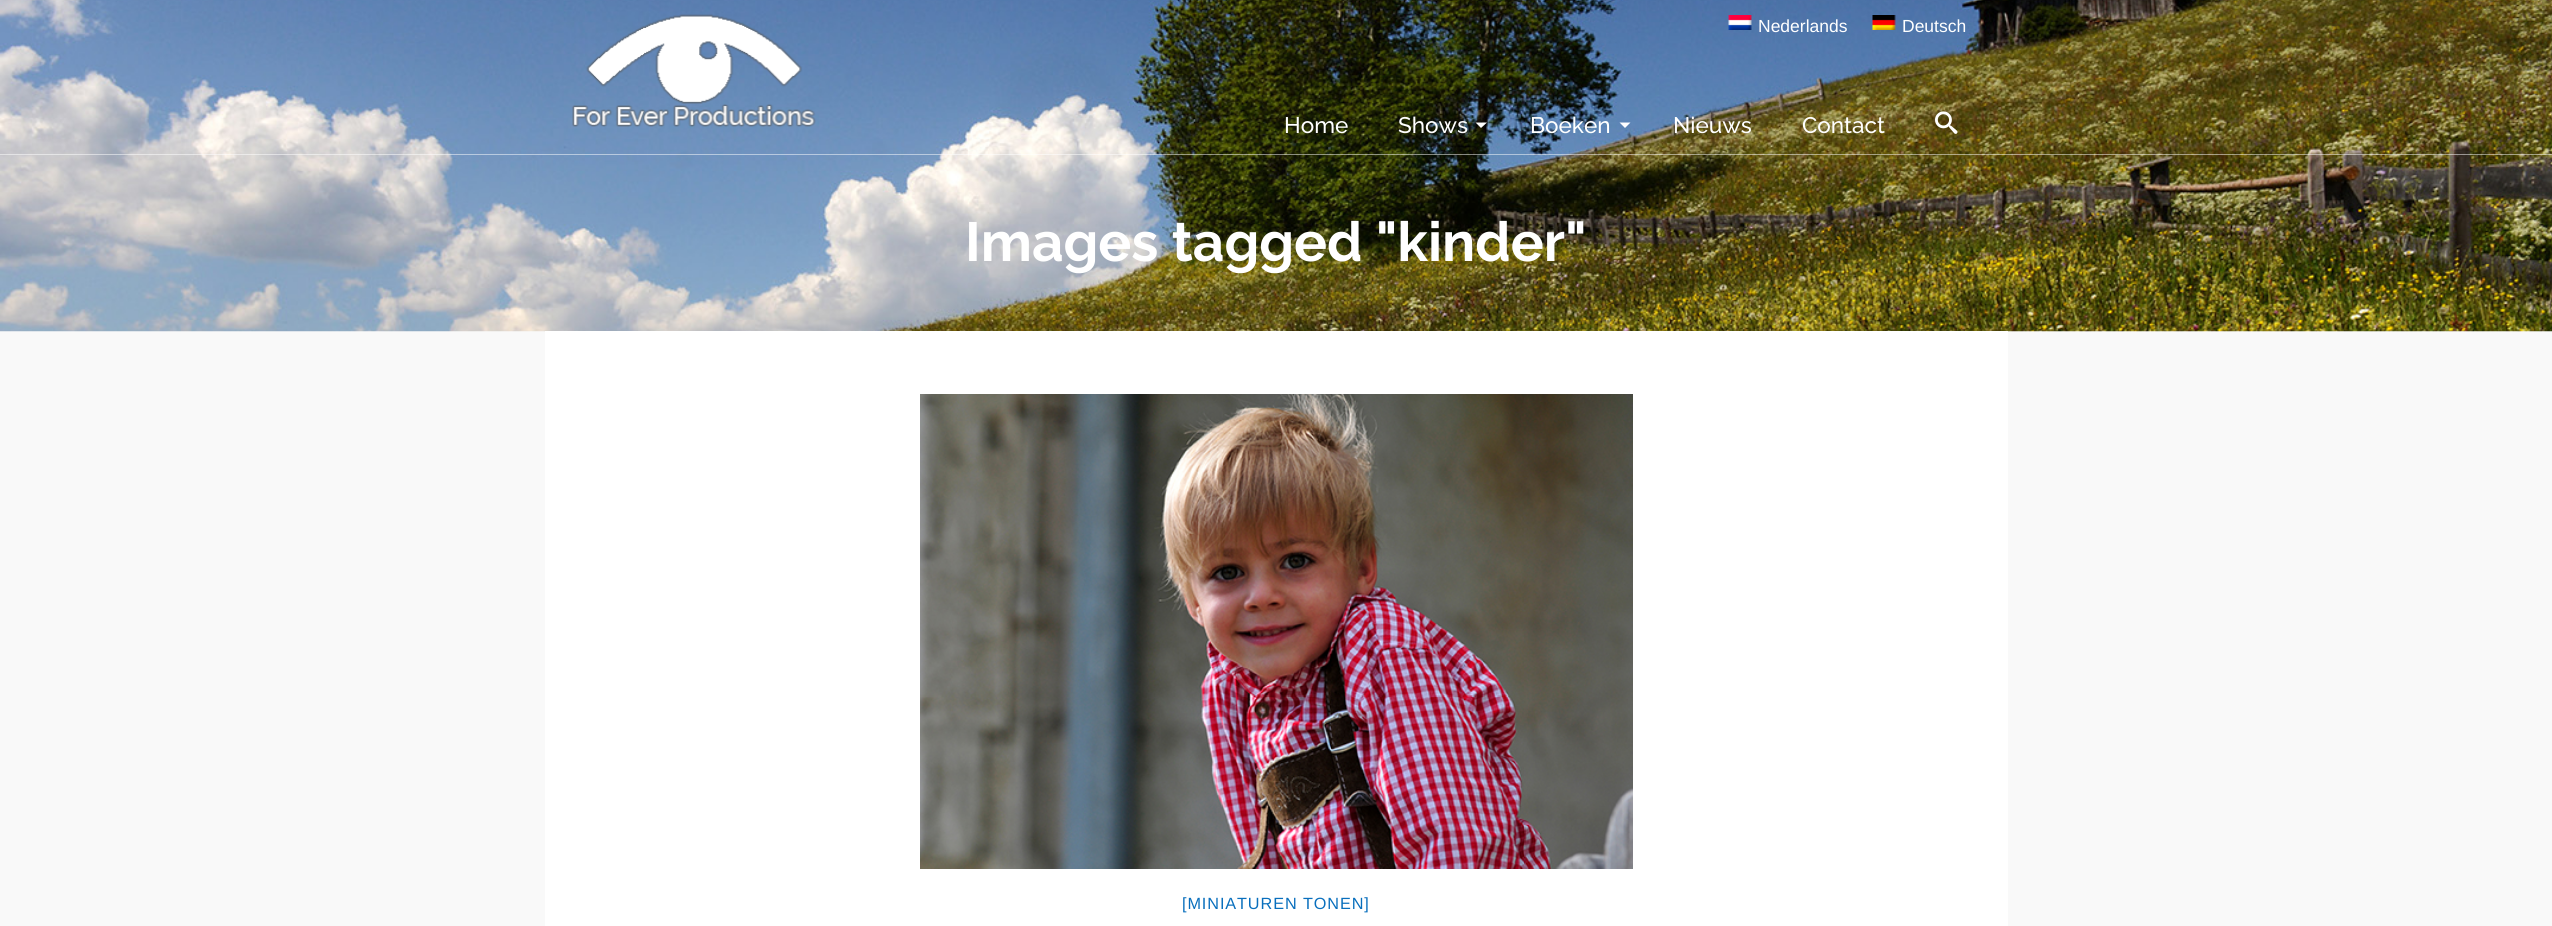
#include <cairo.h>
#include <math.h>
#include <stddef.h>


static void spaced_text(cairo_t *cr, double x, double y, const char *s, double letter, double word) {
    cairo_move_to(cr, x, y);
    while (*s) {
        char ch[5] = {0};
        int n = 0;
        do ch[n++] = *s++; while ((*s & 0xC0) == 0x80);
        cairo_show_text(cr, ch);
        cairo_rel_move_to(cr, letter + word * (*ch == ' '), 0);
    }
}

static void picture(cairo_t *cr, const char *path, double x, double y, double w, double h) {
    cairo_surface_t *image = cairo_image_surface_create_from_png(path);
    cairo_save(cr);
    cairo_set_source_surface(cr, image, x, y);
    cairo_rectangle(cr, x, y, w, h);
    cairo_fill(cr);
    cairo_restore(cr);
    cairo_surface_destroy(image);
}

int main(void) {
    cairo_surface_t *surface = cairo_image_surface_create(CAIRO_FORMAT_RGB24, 2552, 926);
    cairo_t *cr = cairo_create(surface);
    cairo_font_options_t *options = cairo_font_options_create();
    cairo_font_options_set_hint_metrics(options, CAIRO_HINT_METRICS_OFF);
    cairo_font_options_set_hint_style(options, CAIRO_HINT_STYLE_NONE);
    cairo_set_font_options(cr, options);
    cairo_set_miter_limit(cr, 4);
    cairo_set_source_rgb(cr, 0.976, 0.976, 0.976);
    cairo_paint(cr);
    picture(cr, "img5.png", 0, 0, 2552, 332);
    cairo_set_source_rgba(cr, 1, 1, 1, 0.5);
    cairo_rectangle(cr, 0, 154, 2552, 1);
    cairo_fill(cr);
    picture(cr, "img1.png", 1728, 15, 24, 15);
    cairo_select_font_face(cr, "Liberation Sans", CAIRO_FONT_SLANT_NORMAL, CAIRO_FONT_WEIGHT_NORMAL);
    cairo_set_font_size(cr, 17.5);
    cairo_set_source_rgb(cr, 1, 1, 1);
    cairo_move_to(cr, 1758, 32);
    cairo_show_text(cr, "Nederlands");
    picture(cr, "img2.png", 1872, 15, 24, 15);
    cairo_move_to(cr, 1902, 32);
    cairo_show_text(cr, "Deutsch");
    picture(cr, "img3.png", 572, 14, 244, 113);
    cairo_select_font_face(cr, "Raleway Medium", CAIRO_FONT_SLANT_NORMAL, CAIRO_FONT_WEIGHT_NORMAL);
    cairo_set_font_size(cr, 22.5);
    cairo_move_to(cr, 1284, 133);
    cairo_show_text(cr, "Home");
    cairo_move_to(cr, 1398, 133);
    cairo_show_text(cr, "Shows");
    cairo_new_path(cr);
    cairo_move_to(cr, 1475.5, 122.5);
    cairo_line_to(cr, 1481, 128);
    cairo_line_to(cr, 1487, 122.5);
    cairo_close_path(cr);
    cairo_fill(cr);
    cairo_move_to(cr, 1530, 133);
    cairo_show_text(cr, "Boeken");
    cairo_new_path(cr);
    cairo_move_to(cr, 1619.5, 122.5);
    cairo_line_to(cr, 1625, 128);
    cairo_line_to(cr, 1630.5, 122.5);
    cairo_close_path(cr);
    cairo_fill(cr);
    cairo_move_to(cr, 1673, 133);
    cairo_show_text(cr, "Nieuws");
    cairo_move_to(cr, 1802, 133);
    cairo_show_text(cr, "Contact");
    picture(cr, "img4.png", 1935, 111, 23, 23);
    cairo_select_font_face(cr, "Raleway", CAIRO_FONT_SLANT_NORMAL, CAIRO_FONT_WEIGHT_BOLD);
    cairo_set_font_size(cr, 55);
    cairo_move_to(cr, 965, 261);
    cairo_show_text(cr, "Images tagged \"kinder\"");
    cairo_rectangle(cr, 545, 331, 1463, 595);
    cairo_fill(cr);
    picture(cr, "img6.png", 920, 394, 713, 475);
    cairo_select_font_face(cr, "Liberation Sans", CAIRO_FONT_SLANT_NORMAL, CAIRO_FONT_WEIGHT_NORMAL);
    cairo_set_font_size(cr, 16.25);
    cairo_set_source_rgb(cr, 0.039, 0.435, 0.741);
    spaced_text(cr, 1182, 909, "[MINIATUREN TONEN]", 0.9, 0);
    cairo_surface_write_to_png(surface, "page.png");
    cairo_font_options_destroy(options);
    cairo_destroy(cr);
    cairo_surface_destroy(surface);
    return 0;
}
